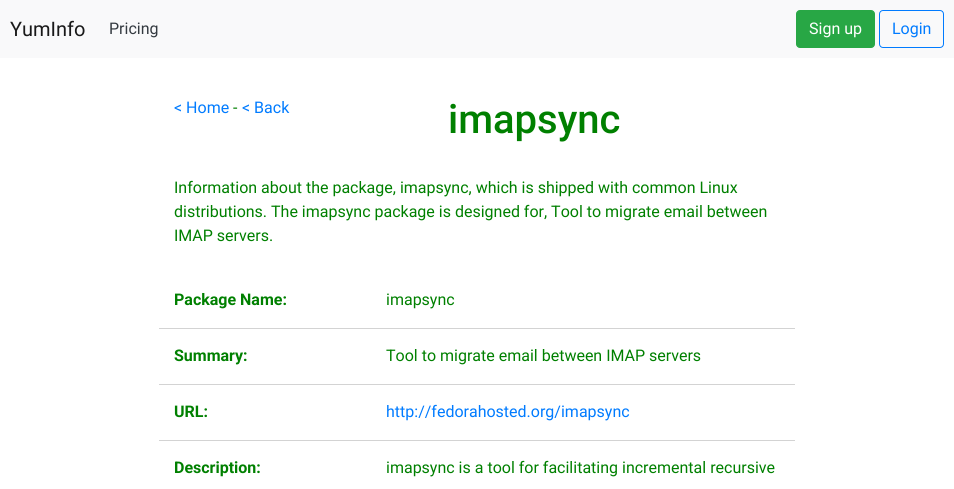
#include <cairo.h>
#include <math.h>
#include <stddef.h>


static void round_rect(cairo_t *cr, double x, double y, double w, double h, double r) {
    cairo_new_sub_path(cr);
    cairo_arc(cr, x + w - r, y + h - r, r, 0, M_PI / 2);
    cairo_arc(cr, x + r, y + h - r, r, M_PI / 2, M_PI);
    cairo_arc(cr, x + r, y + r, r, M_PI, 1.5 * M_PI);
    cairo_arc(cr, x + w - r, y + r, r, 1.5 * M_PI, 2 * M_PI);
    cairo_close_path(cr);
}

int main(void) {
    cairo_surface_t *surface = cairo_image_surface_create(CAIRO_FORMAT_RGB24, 954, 489);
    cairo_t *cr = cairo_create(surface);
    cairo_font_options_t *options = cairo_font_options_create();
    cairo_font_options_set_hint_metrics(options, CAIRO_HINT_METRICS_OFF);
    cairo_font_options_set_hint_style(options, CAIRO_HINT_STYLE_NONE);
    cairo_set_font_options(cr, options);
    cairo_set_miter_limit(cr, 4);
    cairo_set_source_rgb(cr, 1, 1, 1);
    cairo_paint(cr);
    cairo_set_source_rgb(cr, 0.973, 0.976, 0.98);
    cairo_rectangle(cr, 0, 0, 954, 58);
    cairo_fill(cr);
    cairo_select_font_face(cr, "Roboto", CAIRO_FONT_SLANT_NORMAL, CAIRO_FONT_WEIGHT_NORMAL);
    cairo_set_font_size(cr, 20);
    cairo_set_source_rgb(cr, 0.098, 0.098, 0.098);
    cairo_move_to(cr, 10, 36);
    cairo_show_text(cr, "YumInfo");
    cairo_set_font_size(cr, 16);
    cairo_set_source_rgb(cr, 0.204, 0.227, 0.251);
    cairo_move_to(cr, 109, 34);
    cairo_show_text(cr, "Pricing");
    cairo_set_source_rgb(cr, 0.157, 0.655, 0.271);
    round_rect(cr, 796.5, 10.5, 78, 37, 3.5);
    cairo_fill_preserve(cr);
    cairo_set_line_width(cr, 1);
    cairo_stroke(cr);
    cairo_set_source_rgb(cr, 1, 1, 1);
    cairo_move_to(cr, 809, 34);
    cairo_show_text(cr, "Sign up");
    round_rect(cr, 879.5, 10.5, 64, 37, 3.5);
    cairo_set_source_rgb(cr, 0, 0.482, 1);
    cairo_stroke(cr);
    cairo_move_to(cr, 892, 34);
    cairo_show_text(cr, "Login");
    cairo_move_to(cr, 174, 113);
    cairo_show_text(cr, "< Home");
    cairo_set_source_rgb(cr, 0, 0.502, 0);
    cairo_move_to(cr, 233, 113);
    cairo_show_text(cr, "-");
    cairo_set_source_rgb(cr, 0, 0.482, 1);
    cairo_move_to(cr, 242, 113);
    cairo_show_text(cr, "< Back");
    cairo_select_font_face(cr, "Roboto Medium", CAIRO_FONT_SLANT_NORMAL, CAIRO_FONT_WEIGHT_NORMAL);
    cairo_set_font_size(cr, 40);
    cairo_set_source_rgb(cr, 0, 0.502, 0);
    cairo_move_to(cr, 448, 133);
    cairo_show_text(cr, "imapsync");
    cairo_select_font_face(cr, "Roboto", CAIRO_FONT_SLANT_NORMAL, CAIRO_FONT_WEIGHT_NORMAL);
    cairo_set_font_size(cr, 16);
    cairo_move_to(cr, 174, 193);
    cairo_show_text(cr, "Information about the package, imapsync, which is shipped with common Linux");
    cairo_move_to(cr, 174, 217);
    cairo_show_text(cr, "distributions. The imapsync package is designed for, Tool to migrate email between");
    cairo_move_to(cr, 174, 241);
    cairo_show_text(cr, "IMAP servers.");
    cairo_set_source_rgb(cr, 0.827, 0.827, 0.827);
    cairo_rectangle(cr, 159, 328, 636, 1);
    cairo_fill(cr);
    cairo_select_font_face(cr, "Roboto", CAIRO_FONT_SLANT_NORMAL, CAIRO_FONT_WEIGHT_BOLD);
    cairo_set_source_rgb(cr, 0, 0.502, 0);
    cairo_move_to(cr, 174, 305);
    cairo_show_text(cr, "Package Name:");
    cairo_select_font_face(cr, "Roboto", CAIRO_FONT_SLANT_NORMAL, CAIRO_FONT_WEIGHT_NORMAL);
    cairo_move_to(cr, 386, 305);
    cairo_show_text(cr, "imapsync");
    cairo_set_source_rgb(cr, 0.827, 0.827, 0.827);
    cairo_rectangle(cr, 159, 384, 636, 1);
    cairo_fill(cr);
    cairo_select_font_face(cr, "Roboto", CAIRO_FONT_SLANT_NORMAL, CAIRO_FONT_WEIGHT_BOLD);
    cairo_set_source_rgb(cr, 0, 0.502, 0);
    cairo_move_to(cr, 174, 361);
    cairo_show_text(cr, "Summary:");
    cairo_select_font_face(cr, "Roboto", CAIRO_FONT_SLANT_NORMAL, CAIRO_FONT_WEIGHT_NORMAL);
    cairo_move_to(cr, 386, 361);
    cairo_show_text(cr, "Tool to migrate email between IMAP servers");
    cairo_set_source_rgb(cr, 0.827, 0.827, 0.827);
    cairo_rectangle(cr, 159, 440, 636, 1);
    cairo_fill(cr);
    cairo_select_font_face(cr, "Roboto", CAIRO_FONT_SLANT_NORMAL, CAIRO_FONT_WEIGHT_BOLD);
    cairo_set_source_rgb(cr, 0, 0.502, 0);
    cairo_move_to(cr, 174, 417);
    cairo_show_text(cr, "URL:");
    cairo_select_font_face(cr, "Roboto", CAIRO_FONT_SLANT_NORMAL, CAIRO_FONT_WEIGHT_NORMAL);
    cairo_set_source_rgb(cr, 0, 0.482, 1);
    cairo_move_to(cr, 386, 417);
    cairo_show_text(cr, "http://fedorahosted.org/imapsync");
    cairo_select_font_face(cr, "Roboto", CAIRO_FONT_SLANT_NORMAL, CAIRO_FONT_WEIGHT_BOLD);
    cairo_set_source_rgb(cr, 0, 0.502, 0);
    cairo_move_to(cr, 174, 473);
    cairo_show_text(cr, "Description:");
    cairo_select_font_face(cr, "Roboto", CAIRO_FONT_SLANT_NORMAL, CAIRO_FONT_WEIGHT_NORMAL);
    cairo_move_to(cr, 386, 473);
    cairo_show_text(cr, "imapsync is a tool for facilitating incremental recursive");
    cairo_surface_write_to_png(surface, "page.png");
    cairo_font_options_destroy(options);
    cairo_destroy(cr);
    cairo_surface_destroy(surface);
    return 0;
}
